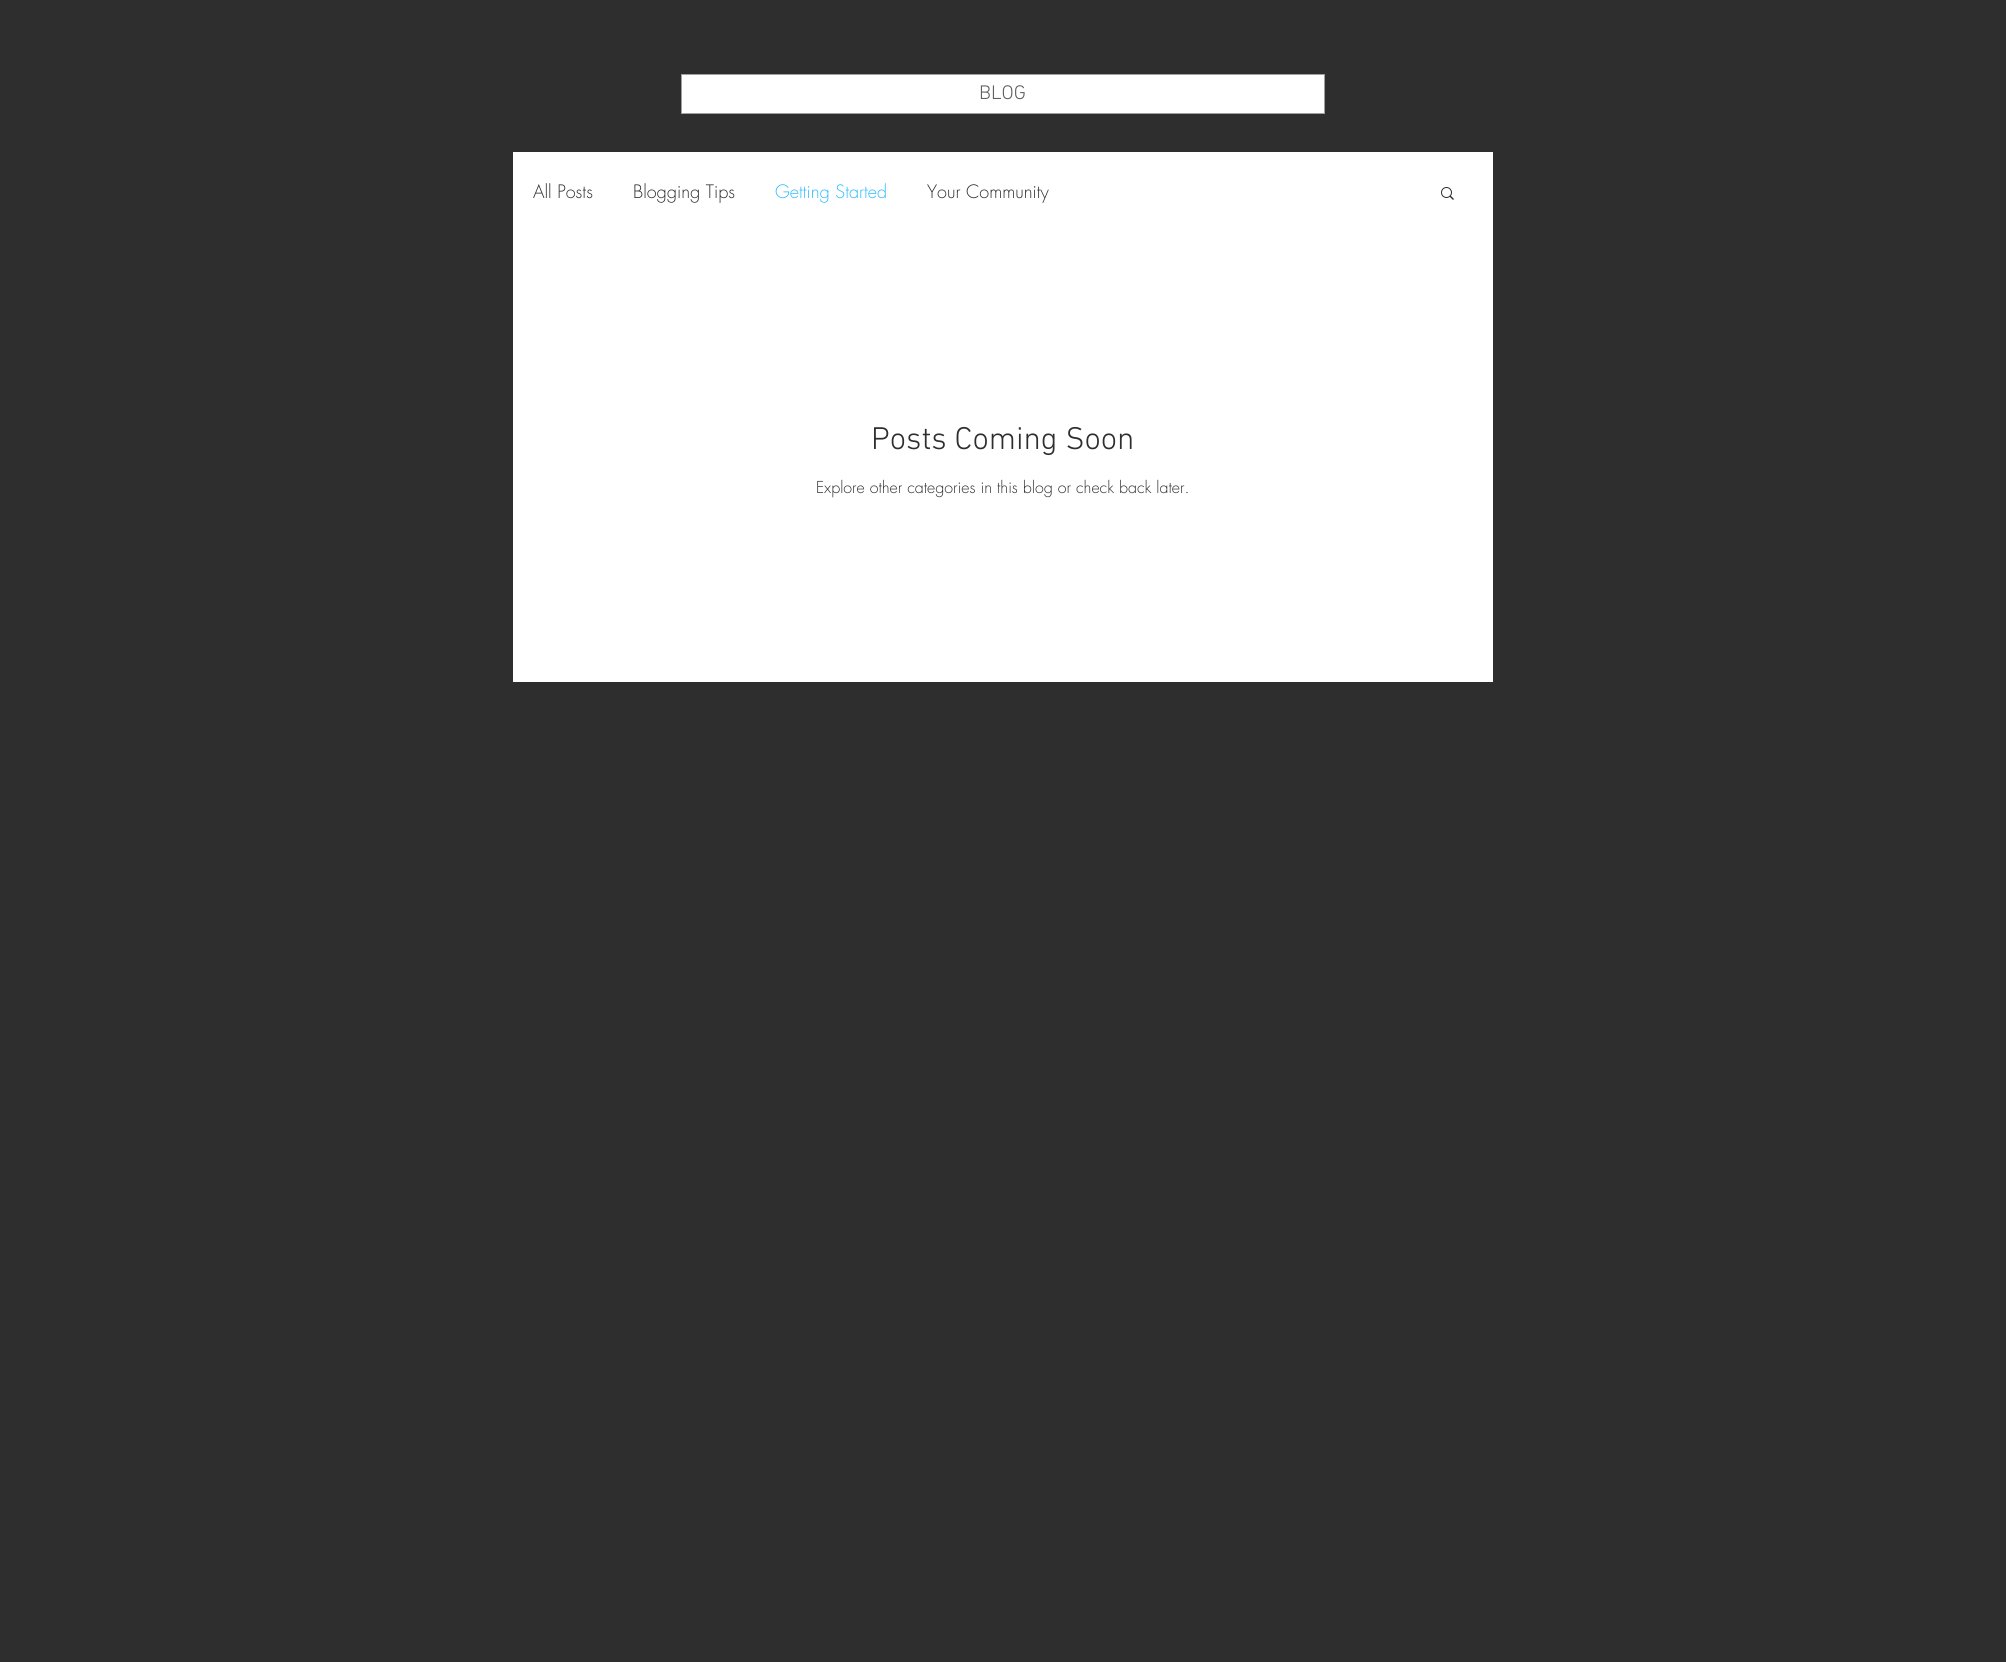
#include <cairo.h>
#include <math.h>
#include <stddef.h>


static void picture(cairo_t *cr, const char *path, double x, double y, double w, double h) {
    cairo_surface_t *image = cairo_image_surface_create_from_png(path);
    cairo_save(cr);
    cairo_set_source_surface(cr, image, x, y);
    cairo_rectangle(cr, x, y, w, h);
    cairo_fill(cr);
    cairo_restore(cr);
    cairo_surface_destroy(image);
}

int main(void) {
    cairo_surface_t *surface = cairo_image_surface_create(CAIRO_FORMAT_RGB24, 2006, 1662);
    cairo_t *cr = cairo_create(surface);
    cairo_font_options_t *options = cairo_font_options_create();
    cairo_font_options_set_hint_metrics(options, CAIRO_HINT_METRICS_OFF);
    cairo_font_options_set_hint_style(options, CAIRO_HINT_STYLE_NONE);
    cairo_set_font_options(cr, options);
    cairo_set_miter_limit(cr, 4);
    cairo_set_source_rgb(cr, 0.184, 0.18, 0.18);
    cairo_paint(cr);
    cairo_set_source_rgb(cr, 1, 1, 1);
    cairo_rectangle(cr, 681.5, 74.5, 643, 39);
    cairo_fill_preserve(cr);
    cairo_set_source_rgb(cr, 0.627, 0.627, 0.624);
    cairo_set_line_width(cr, 1);
    cairo_stroke(cr);
    cairo_select_font_face(cr, "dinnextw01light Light", CAIRO_FONT_SLANT_NORMAL, CAIRO_FONT_WEIGHT_NORMAL);
    cairo_set_font_size(cr, 20);
    cairo_set_source_rgb(cr, 0.376, 0.369, 0.369);
    cairo_move_to(cr, 979, 99);
    cairo_show_text(cr, "BLOG");
    cairo_set_source_rgb(cr, 1, 1, 1);
    cairo_rectangle(cr, 513, 152, 980, 530);
    cairo_fill(cr);
    cairo_select_font_face(cr, "futura Light", CAIRO_FONT_SLANT_NORMAL, CAIRO_FONT_WEIGHT_NORMAL);
    cairo_set_font_size(cr, 18);
    cairo_set_source_rgb(cr, 0.184, 0.18, 0.18);
    cairo_move_to(cr, 533, 198);
    cairo_show_text(cr, "All Posts");
    cairo_move_to(cr, 633, 198);
    cairo_show_text(cr, "Blogging Tips");
    cairo_set_source_rgb(cr, 0.188, 0.741, 1);
    cairo_move_to(cr, 775, 198);
    cairo_show_text(cr, "Getting Started");
    cairo_set_source_rgb(cr, 0.184, 0.18, 0.18);
    cairo_move_to(cr, 927, 198);
    cairo_show_text(cr, "Your Community");
    picture(cr, "img1.png", 1441, 187, 13, 13);
    cairo_select_font_face(cr, "dinnextw01light Light", CAIRO_FONT_SLANT_NORMAL, CAIRO_FONT_WEIGHT_NORMAL);
    cairo_set_font_size(cr, 32);
    cairo_move_to(cr, 871, 449);
    cairo_show_text(cr, "Posts Coming Soon");
    cairo_select_font_face(cr, "futura Light", CAIRO_FONT_SLANT_NORMAL, CAIRO_FONT_WEIGHT_NORMAL);
    cairo_set_font_size(cr, 16);
    cairo_move_to(cr, 816, 493);
    cairo_show_text(cr, "Explore other categories in this blog or check back later.");
    cairo_surface_write_to_png(surface, "page.png");
    cairo_font_options_destroy(options);
    cairo_destroy(cr);
    cairo_surface_destroy(surface);
    return 0;
}
